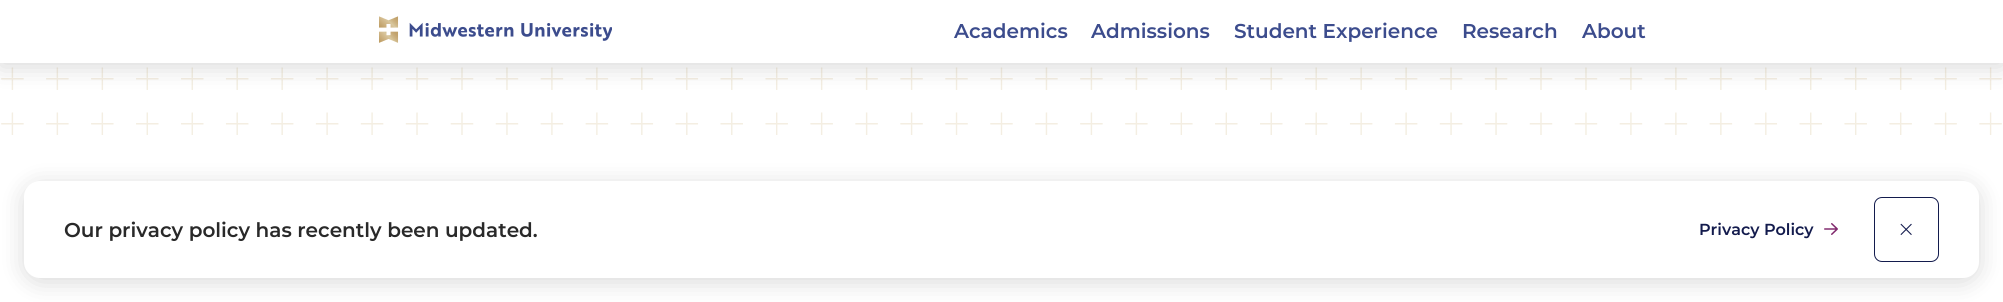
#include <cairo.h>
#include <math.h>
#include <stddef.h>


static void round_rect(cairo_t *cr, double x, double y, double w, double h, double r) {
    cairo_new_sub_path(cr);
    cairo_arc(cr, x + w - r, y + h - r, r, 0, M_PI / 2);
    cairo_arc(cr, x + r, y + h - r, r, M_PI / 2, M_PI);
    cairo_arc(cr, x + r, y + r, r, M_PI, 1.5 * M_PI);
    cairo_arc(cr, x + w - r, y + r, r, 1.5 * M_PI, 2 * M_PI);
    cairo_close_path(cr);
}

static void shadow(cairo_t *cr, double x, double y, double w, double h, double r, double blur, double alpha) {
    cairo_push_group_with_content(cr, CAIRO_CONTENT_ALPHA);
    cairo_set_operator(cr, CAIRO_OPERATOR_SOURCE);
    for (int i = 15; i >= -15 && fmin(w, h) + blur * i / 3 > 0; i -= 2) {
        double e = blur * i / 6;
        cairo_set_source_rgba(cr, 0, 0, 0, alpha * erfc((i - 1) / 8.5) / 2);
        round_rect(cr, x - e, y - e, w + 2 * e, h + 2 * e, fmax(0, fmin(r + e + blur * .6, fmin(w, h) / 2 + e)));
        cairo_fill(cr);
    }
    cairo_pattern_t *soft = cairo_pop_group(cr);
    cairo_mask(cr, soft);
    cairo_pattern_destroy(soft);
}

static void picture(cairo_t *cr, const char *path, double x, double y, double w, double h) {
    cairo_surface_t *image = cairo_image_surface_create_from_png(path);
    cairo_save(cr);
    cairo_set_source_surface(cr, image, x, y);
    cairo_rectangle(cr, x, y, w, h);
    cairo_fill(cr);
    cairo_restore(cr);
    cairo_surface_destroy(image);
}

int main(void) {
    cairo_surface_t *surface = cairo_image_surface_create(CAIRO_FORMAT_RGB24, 2003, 302);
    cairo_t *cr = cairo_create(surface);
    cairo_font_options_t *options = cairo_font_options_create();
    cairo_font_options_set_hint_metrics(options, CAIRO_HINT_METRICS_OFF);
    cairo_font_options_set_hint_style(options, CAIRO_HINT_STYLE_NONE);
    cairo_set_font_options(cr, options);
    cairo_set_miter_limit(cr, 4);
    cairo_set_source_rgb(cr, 1, 1, 1);
    cairo_paint(cr);
    picture(cr, "img2.png", 1, 67, 2001, 68);
    cairo_set_source_rgb(cr, 0, 0, 0);
    shadow(cr, 0, 4, 2003, 63, 0, 12, 0.15);
    cairo_set_source_rgb(cr, 1, 1, 1);
    cairo_rectangle(cr, 0, 0, 2003, 63);
    cairo_fill(cr);
    picture(cr, "img1.png", 379, 16, 233, 27);
    cairo_select_font_face(cr, "Montserrat SemiBold", CAIRO_FONT_SLANT_NORMAL, CAIRO_FONT_WEIGHT_NORMAL);
    cairo_set_font_size(cr, 20);
    cairo_set_source_rgb(cr, 0.235, 0.298, 0.553);
    cairo_move_to(cr, 954, 38);
    cairo_show_text(cr, "Academics");
    cairo_move_to(cr, 1091, 38);
    cairo_show_text(cr, "Admissions");
    cairo_move_to(cr, 1234, 38);
    cairo_show_text(cr, "Student Experience");
    cairo_move_to(cr, 1462, 38);
    cairo_show_text(cr, "Research");
    cairo_move_to(cr, 1582, 38);
    cairo_show_text(cr, "About");
    cairo_set_source_rgb(cr, 0, 0, 0);
    shadow(cr, 24, 185, 1955, 97, 16, 12, 0.15);
    cairo_set_source_rgb(cr, 1, 1, 1);
    round_rect(cr, 24, 181, 1955, 97, 16);
    cairo_fill(cr);
    cairo_set_source_rgb(cr, 0.161, 0.161, 0.161);
    cairo_move_to(cr, 64, 237);
    cairo_show_text(cr, "Our privacy policy has recently been updated.");
    cairo_set_font_size(cr, 16);
    cairo_set_source_rgb(cr, 0.078, 0.106, 0.302);
    cairo_move_to(cr, 1699, 235);
    cairo_show_text(cr, "Privacy Policy");
    picture(cr, "img3.png", 1824, 223, 14, 12);
    round_rect(cr, 1874.5, 197.5, 64, 64, 7.5);
    cairo_set_line_width(cr, 1);
    cairo_stroke(cr);
    cairo_select_font_face(cr, "Montserrat ExtraLight", CAIRO_FONT_SLANT_NORMAL, CAIRO_FONT_WEIGHT_NORMAL);
    cairo_set_font_size(cr, 36);
    cairo_move_to(cr, 1896, 242);
    cairo_show_text(cr, "×");
    cairo_surface_write_to_png(surface, "page.png");
    cairo_font_options_destroy(options);
    cairo_destroy(cr);
    cairo_surface_destroy(surface);
    return 0;
}
